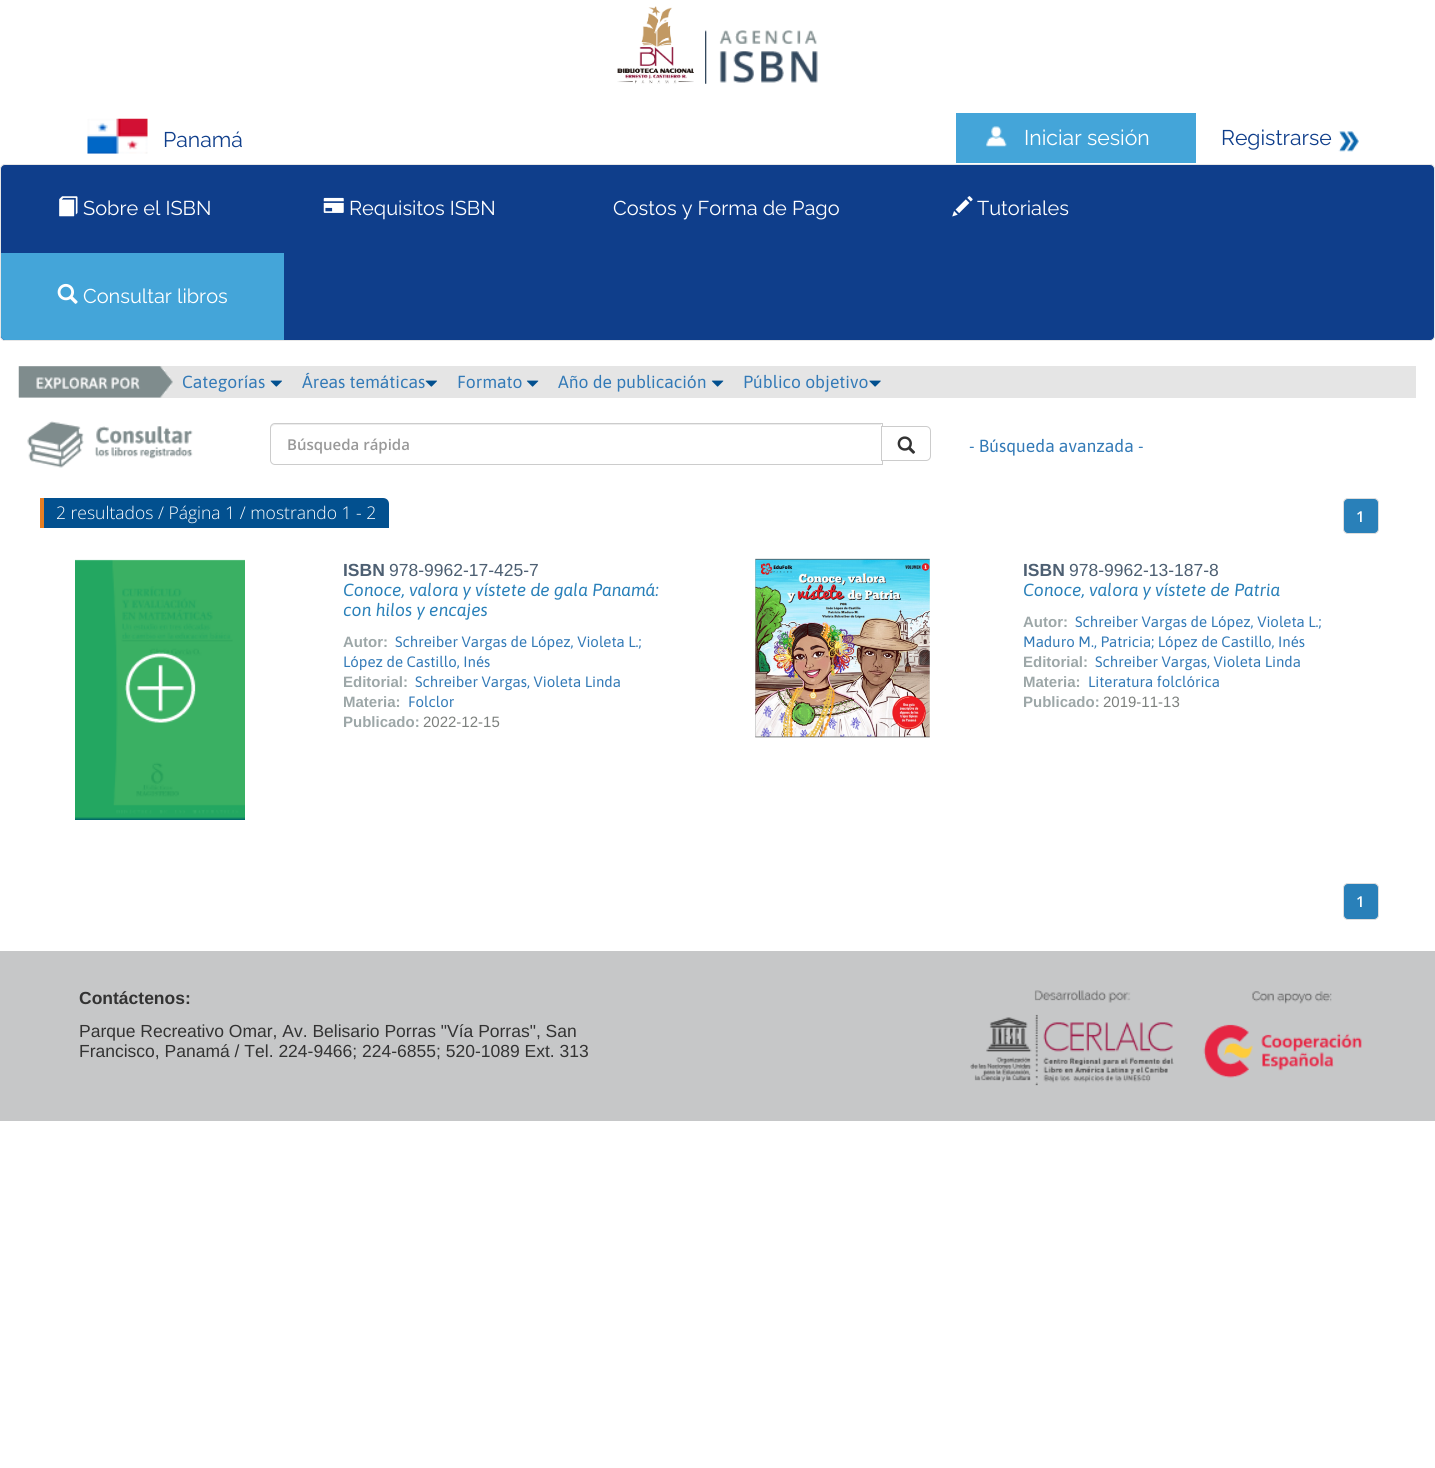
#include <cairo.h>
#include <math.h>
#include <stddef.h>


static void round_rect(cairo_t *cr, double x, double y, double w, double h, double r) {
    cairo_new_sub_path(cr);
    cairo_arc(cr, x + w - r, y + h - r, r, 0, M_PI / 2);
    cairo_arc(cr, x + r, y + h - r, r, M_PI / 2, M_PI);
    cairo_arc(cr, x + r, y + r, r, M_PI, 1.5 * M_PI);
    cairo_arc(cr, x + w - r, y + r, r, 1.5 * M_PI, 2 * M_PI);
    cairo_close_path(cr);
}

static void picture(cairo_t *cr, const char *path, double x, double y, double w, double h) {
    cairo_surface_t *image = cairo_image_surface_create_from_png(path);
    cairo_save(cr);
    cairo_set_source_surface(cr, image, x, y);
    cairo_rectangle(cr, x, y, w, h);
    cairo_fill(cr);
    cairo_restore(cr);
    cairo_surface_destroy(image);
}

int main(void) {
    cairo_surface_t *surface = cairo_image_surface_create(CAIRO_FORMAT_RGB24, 1435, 1468);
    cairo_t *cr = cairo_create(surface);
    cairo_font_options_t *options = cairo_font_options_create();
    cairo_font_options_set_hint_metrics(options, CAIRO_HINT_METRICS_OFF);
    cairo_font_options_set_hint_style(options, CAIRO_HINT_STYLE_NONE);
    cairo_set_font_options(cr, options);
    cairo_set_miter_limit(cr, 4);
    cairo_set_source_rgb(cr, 1, 1, 1);
    cairo_paint(cr);
    picture(cr, "img1.png", 617, 6, 77, 78);
    picture(cr, "img2.png", 705, 30, 113, 54);
    picture(cr, "img3.png", 87, 118, 61, 36);
    cairo_select_font_face(cr, "Raleway Thin", CAIRO_FONT_SLANT_NORMAL, CAIRO_FONT_WEIGHT_NORMAL);
    cairo_set_font_size(cr, 21.25);
    cairo_set_source_rgb(cr, 0.059, 0.243, 0.545);
    cairo_move_to(cr, 163, 147);
    cairo_show_text(cr, "Panamá");
    cairo_set_source_rgb(cr, 0.267, 0.647, 0.851);
    cairo_rectangle(cr, 956, 113, 240, 50);
    cairo_fill(cr);
    picture(cr, "img4.png", 986, 126, 21, 21);
    cairo_set_source_rgb(cr, 1, 1, 1);
    cairo_move_to(cr, 1024, 145);
    cairo_show_text(cr, "Iniciar sesión");
    cairo_set_source_rgb(cr, 0.059, 0.243, 0.545);
    cairo_move_to(cr, 1221, 145);
    cairo_show_text(cr, "Registrarse");
    picture(cr, "img5.png", 1338, 131, 21, 21);
    round_rect(cr, 0.5, 164.5, 1434, 176, 4.5);
    cairo_fill_preserve(cr);
    cairo_set_source_rgb(cr, 0.906, 0.906, 0.906);
    cairo_set_line_width(cr, 1);
    cairo_stroke(cr);
    picture(cr, "img6.png", 59, 196, 19, 21);
    cairo_set_font_size(cr, 20);
    cairo_set_source_rgb(cr, 1, 1, 1);
    cairo_move_to(cr, 83, 215);
    cairo_show_text(cr, "Sobre el ISBN");
    picture(cr, "img7.png", 323, 197, 21, 16);
    cairo_move_to(cr, 349, 215);
    cairo_show_text(cr, "Requisitos ISBN");
    cairo_move_to(cr, 613, 215);
    cairo_show_text(cr, "Costos y Forma de Pago");
    picture(cr, "img8.png", 952, 196, 21, 21);
    cairo_move_to(cr, 977, 215);
    cairo_show_text(cr, "Tutoriales");
    cairo_set_source_rgb(cr, 0.267, 0.647, 0.851);
    cairo_new_path(cr);
    cairo_move_to(cr, 1, 253);
    cairo_line_to(cr, 284, 253);
    cairo_line_to(cr, 284, 340);
    cairo_line_to(cr, 5, 340);
    cairo_curve_to(cr, 3, 340, 1, 338, 1, 336);
    cairo_close_path(cr);
    cairo_fill(cr);
    picture(cr, "img9.png", 57, 283, 21, 21);
    cairo_set_source_rgb(cr, 1, 1, 1);
    cairo_move_to(cr, 83, 303);
    cairo_show_text(cr, "Consultar libros");
    cairo_set_source_rgb(cr, 0.898, 0.898, 0.898);
    cairo_rectangle(cr, 19, 366, 1397, 32);
    cairo_fill(cr);
    picture(cr, "img10.png", 18, 366, 155, 32);
    cairo_select_font_face(cr, "Asap", CAIRO_FONT_SLANT_NORMAL, CAIRO_FONT_WEIGHT_NORMAL);
    cairo_set_font_size(cr, 17.5);
    cairo_set_source_rgb(cr, 0.2, 0.478, 0.718);
    cairo_move_to(cr, 182, 388);
    cairo_show_text(cr, "Categorías");
    picture(cr, "img11.png", 270, 380, 12, 7);
    cairo_move_to(cr, 302, 388);
    cairo_show_text(cr, "Áreas temáticas");
    picture(cr, "img11.png", 425, 380, 12, 7);
    cairo_move_to(cr, 457, 388);
    cairo_show_text(cr, "Formato");
    picture(cr, "img12.png", 526, 380, 13, 7);
    cairo_move_to(cr, 558, 388);
    cairo_show_text(cr, "Año de publicación");
    picture(cr, "img12.png", 711, 380, 13, 7);
    cairo_move_to(cr, 743, 388);
    cairo_show_text(cr, "Público objetivo");
    picture(cr, "img13.png", 869, 380, 12, 7);
    picture(cr, "img14.png", 27, 421, 166, 47);
    cairo_set_source_rgb(cr, 0.925, 0.925, 0.925);
    cairo_new_path(cr);
    cairo_move_to(cr, 275, 425);
    cairo_line_to(cr, 881, 425);
    cairo_line_to(cr, 881, 424);
    cairo_line_to(cr, 275, 424);
    cairo_curve_to(cr, 272, 424, 271, 426, 271, 429);
    cairo_curve_to(cr, 271, 427, 273, 425, 275, 425);
    cairo_close_path(cr);
    cairo_fill(cr);
    cairo_new_path(cr);
    cairo_move_to(cr, 275, 423.5);
    cairo_line_to(cr, 882.5, 423.5);
    cairo_line_to(cr, 882.5, 464.5);
    cairo_line_to(cr, 275, 464.5);
    cairo_curve_to(cr, 272.5, 464.5, 270.5, 462.5, 270.5, 460);
    cairo_line_to(cr, 270.5, 428);
    cairo_curve_to(cr, 270.5, 425.5, 272.5, 423.5, 275, 423.5);
    cairo_close_path(cr);
    cairo_set_source_rgb(cr, 0.8, 0.8, 0.8);
    cairo_stroke(cr);
    cairo_select_font_face(cr, "Open Sans SemiBold", CAIRO_FONT_SLANT_NORMAL, CAIRO_FONT_WEIGHT_NORMAL);
    cairo_set_font_size(cr, 15);
    cairo_set_source_rgb(cr, 0.6, 0.6, 0.6);
    cairo_move_to(cr, 287, 450);
    cairo_show_text(cr, "Búsqueda rápida");
    cairo_set_source_rgb(cr, 1, 1, 1);
    cairo_new_path(cr);
    cairo_move_to(cr, 881.5, 426.5);
    cairo_line_to(cr, 926, 426.5);
    cairo_curve_to(cr, 928.5, 426.5, 930.5, 428.5, 930.5, 431);
    cairo_line_to(cr, 930.5, 456);
    cairo_curve_to(cr, 930.5, 458.5, 928.5, 460.5, 926, 460.5);
    cairo_line_to(cr, 881.5, 460.5);
    cairo_close_path(cr);
    cairo_fill_preserve(cr);
    cairo_set_source_rgb(cr, 0.8, 0.8, 0.8);
    cairo_stroke(cr);
    picture(cr, "img15.png", 897, 436, 19, 18);
    cairo_select_font_face(cr, "Asap", CAIRO_FONT_SLANT_NORMAL, CAIRO_FONT_WEIGHT_NORMAL);
    cairo_set_font_size(cr, 17.5);
    cairo_set_source_rgb(cr, 0.2, 0.478, 0.718);
    cairo_move_to(cr, 969, 452);
    cairo_show_text(cr, "- Búsqueda avanzada -");
    cairo_set_source_rgb(cr, 0.008, 0.314, 0.561);
    cairo_new_path(cr);
    cairo_move_to(cr, 40, 498);
    cairo_line_to(cr, 383, 498);
    cairo_curve_to(cr, 386.5, 498, 389, 500.5, 389, 504);
    cairo_line_to(cr, 389, 528);
    cairo_line_to(cr, 40, 528);
    cairo_close_path(cr);
    cairo_fill(cr);
    cairo_select_font_face(cr, "Open Sans Light", CAIRO_FONT_SLANT_NORMAL, CAIRO_FONT_WEIGHT_NORMAL);
    cairo_set_source_rgb(cr, 1, 1, 1);
    cairo_move_to(cr, 56, 519);
    cairo_show_text(cr, "2 resultados / Página 1 / mostrando 1 - 2");
    cairo_set_source_rgb(cr, 0.902, 0.494, 0.133);
    cairo_rectangle(cr, 40, 498, 4, 30);
    cairo_fill(cr);
    cairo_set_source_rgb(cr, 0.161, 0.502, 0.725);
    round_rect(cr, 1343.5, 498.5, 35, 35, 4.5);
    cairo_fill_preserve(cr);
    cairo_set_source_rgb(cr, 0.867, 0.867, 0.867);
    cairo_stroke(cr);
    cairo_select_font_face(cr, "Open Sans SemiBold", CAIRO_FONT_SLANT_NORMAL, CAIRO_FONT_WEIGHT_NORMAL);
    cairo_set_font_size(cr, 15);
    cairo_set_source_rgb(cr, 1, 1, 1);
    cairo_move_to(cr, 1356, 522);
    cairo_show_text(cr, "1");
    picture(cr, "img16.png", 75, 559, 170, 261);
    cairo_select_font_face(cr, "Liberation Sans", CAIRO_FONT_SLANT_NORMAL, CAIRO_FONT_WEIGHT_BOLD);
    cairo_set_font_size(cr, 17.5);
    cairo_set_source_rgb(cr, 0.302, 0.373, 0.447);
    cairo_move_to(cr, 343, 576);
    cairo_show_text(cr, "ISBN");
    cairo_select_font_face(cr, "Liberation Sans", CAIRO_FONT_SLANT_NORMAL, CAIRO_FONT_WEIGHT_NORMAL);
    cairo_move_to(cr, 389, 576);
    cairo_show_text(cr, "978-9962-17-425-7");
    cairo_select_font_face(cr, "Asap", CAIRO_FONT_SLANT_ITALIC, CAIRO_FONT_WEIGHT_NORMAL);
    cairo_set_source_rgb(cr, 0.161, 0.502, 0.725);
    cairo_move_to(cr, 343, 596);
    cairo_show_text(cr, "Conoce, valora y vístete de gala Panamá:");
    cairo_move_to(cr, 343, 616);
    cairo_show_text(cr, "con hilos y encajes");
    cairo_select_font_face(cr, "Liberation Sans", CAIRO_FONT_SLANT_NORMAL, CAIRO_FONT_WEIGHT_BOLD);
    cairo_set_font_size(cr, 15);
    cairo_set_source_rgb(cr, 0.616, 0.655, 0.659);
    cairo_move_to(cr, 343, 647);
    cairo_show_text(cr, "Autor:");
    cairo_select_font_face(cr, "Asap", CAIRO_FONT_SLANT_NORMAL, CAIRO_FONT_WEIGHT_NORMAL);
    cairo_set_source_rgb(cr, 0.2, 0.478, 0.718);
    cairo_move_to(cr, 395, 647);
    cairo_show_text(cr, "Schreiber Vargas de López, Violeta L.;");
    cairo_move_to(cr, 343, 667);
    cairo_show_text(cr, "López de Castillo, Inés");
    cairo_select_font_face(cr, "Liberation Sans", CAIRO_FONT_SLANT_NORMAL, CAIRO_FONT_WEIGHT_BOLD);
    cairo_set_source_rgb(cr, 0.616, 0.655, 0.659);
    cairo_move_to(cr, 343, 687);
    cairo_show_text(cr, "Editorial:");
    cairo_select_font_face(cr, "Asap", CAIRO_FONT_SLANT_NORMAL, CAIRO_FONT_WEIGHT_NORMAL);
    cairo_set_source_rgb(cr, 0.2, 0.478, 0.718);
    cairo_move_to(cr, 415, 687);
    cairo_show_text(cr, "Schreiber Vargas, Violeta Linda");
    cairo_select_font_face(cr, "Liberation Sans", CAIRO_FONT_SLANT_NORMAL, CAIRO_FONT_WEIGHT_BOLD);
    cairo_set_source_rgb(cr, 0.616, 0.655, 0.659);
    cairo_move_to(cr, 343, 707);
    cairo_show_text(cr, "Materia:");
    cairo_select_font_face(cr, "Asap", CAIRO_FONT_SLANT_NORMAL, CAIRO_FONT_WEIGHT_NORMAL);
    cairo_set_source_rgb(cr, 0.2, 0.478, 0.718);
    cairo_move_to(cr, 408, 707);
    cairo_show_text(cr, "Folclor");
    cairo_select_font_face(cr, "Liberation Sans", CAIRO_FONT_SLANT_NORMAL, CAIRO_FONT_WEIGHT_BOLD);
    cairo_set_source_rgb(cr, 0.616, 0.655, 0.659);
    cairo_move_to(cr, 343, 727);
    cairo_show_text(cr, "Publicado:");
    cairo_select_font_face(cr, "Liberation Sans", CAIRO_FONT_SLANT_NORMAL, CAIRO_FONT_WEIGHT_NORMAL);
    cairo_set_source_rgb(cr, 0.486, 0.502, 0.49);
    cairo_move_to(cr, 423, 727);
    cairo_show_text(cr, "2022-12-15");
    picture(cr, "img17.png", 755, 558, 175, 180);
    cairo_select_font_face(cr, "Liberation Sans", CAIRO_FONT_SLANT_NORMAL, CAIRO_FONT_WEIGHT_BOLD);
    cairo_set_font_size(cr, 17.5);
    cairo_set_source_rgb(cr, 0.302, 0.373, 0.447);
    cairo_move_to(cr, 1023, 576);
    cairo_show_text(cr, "ISBN");
    cairo_select_font_face(cr, "Liberation Sans", CAIRO_FONT_SLANT_NORMAL, CAIRO_FONT_WEIGHT_NORMAL);
    cairo_move_to(cr, 1069, 576);
    cairo_show_text(cr, "978-9962-13-187-8");
    cairo_select_font_face(cr, "Asap", CAIRO_FONT_SLANT_ITALIC, CAIRO_FONT_WEIGHT_NORMAL);
    cairo_set_source_rgb(cr, 0.161, 0.502, 0.725);
    cairo_move_to(cr, 1023, 596);
    cairo_show_text(cr, "Conoce, valora y vístete de Patria");
    cairo_select_font_face(cr, "Liberation Sans", CAIRO_FONT_SLANT_NORMAL, CAIRO_FONT_WEIGHT_BOLD);
    cairo_set_font_size(cr, 15);
    cairo_set_source_rgb(cr, 0.616, 0.655, 0.659);
    cairo_move_to(cr, 1023, 627);
    cairo_show_text(cr, "Autor:");
    cairo_select_font_face(cr, "Asap", CAIRO_FONT_SLANT_NORMAL, CAIRO_FONT_WEIGHT_NORMAL);
    cairo_set_source_rgb(cr, 0.2, 0.478, 0.718);
    cairo_move_to(cr, 1075, 627);
    cairo_show_text(cr, "Schreiber Vargas de López, Violeta L.;");
    cairo_move_to(cr, 1023, 647);
    cairo_show_text(cr, "Maduro M., Patricia; López de Castillo, Inés");
    cairo_select_font_face(cr, "Liberation Sans", CAIRO_FONT_SLANT_NORMAL, CAIRO_FONT_WEIGHT_BOLD);
    cairo_set_source_rgb(cr, 0.616, 0.655, 0.659);
    cairo_move_to(cr, 1023, 667);
    cairo_show_text(cr, "Editorial:");
    cairo_select_font_face(cr, "Asap", CAIRO_FONT_SLANT_NORMAL, CAIRO_FONT_WEIGHT_NORMAL);
    cairo_set_source_rgb(cr, 0.2, 0.478, 0.718);
    cairo_move_to(cr, 1095, 667);
    cairo_show_text(cr, "Schreiber Vargas, Violeta Linda");
    cairo_select_font_face(cr, "Liberation Sans", CAIRO_FONT_SLANT_NORMAL, CAIRO_FONT_WEIGHT_BOLD);
    cairo_set_source_rgb(cr, 0.616, 0.655, 0.659);
    cairo_move_to(cr, 1023, 687);
    cairo_show_text(cr, "Materia:");
    cairo_select_font_face(cr, "Asap", CAIRO_FONT_SLANT_NORMAL, CAIRO_FONT_WEIGHT_NORMAL);
    cairo_set_source_rgb(cr, 0.2, 0.478, 0.718);
    cairo_move_to(cr, 1088, 687);
    cairo_show_text(cr, "Literatura folclórica");
    cairo_select_font_face(cr, "Liberation Sans", CAIRO_FONT_SLANT_NORMAL, CAIRO_FONT_WEIGHT_BOLD);
    cairo_set_source_rgb(cr, 0.616, 0.655, 0.659);
    cairo_move_to(cr, 1023, 707);
    cairo_show_text(cr, "Publicado:");
    cairo_select_font_face(cr, "Liberation Sans", CAIRO_FONT_SLANT_NORMAL, CAIRO_FONT_WEIGHT_NORMAL);
    cairo_set_source_rgb(cr, 0.486, 0.502, 0.49);
    cairo_move_to(cr, 1103, 707);
    cairo_show_text(cr, "2019-11-13");
    cairo_set_source_rgb(cr, 0.161, 0.502, 0.725);
    round_rect(cr, 1343.5, 883.5, 35, 36, 4.5);
    cairo_fill_preserve(cr);
    cairo_set_source_rgb(cr, 0.867, 0.867, 0.867);
    cairo_stroke(cr);
    cairo_select_font_face(cr, "Open Sans SemiBold", CAIRO_FONT_SLANT_NORMAL, CAIRO_FONT_WEIGHT_NORMAL);
    cairo_set_source_rgb(cr, 1, 1, 1);
    cairo_move_to(cr, 1356, 907);
    cairo_show_text(cr, "1");
    cairo_set_source_rgb(cr, 0.776, 0.78, 0.784);
    cairo_rectangle(cr, 0, 951, 1435, 170);
    cairo_fill(cr);
    cairo_select_font_face(cr, "Liberation Sans", CAIRO_FONT_SLANT_NORMAL, CAIRO_FONT_WEIGHT_BOLD);
    cairo_set_font_size(cr, 17.5);
    cairo_set_source_rgb(cr, 0.2, 0.2, 0.2);
    cairo_move_to(cr, 79, 1004);
    cairo_show_text(cr, "Contáctenos:");
    cairo_select_font_face(cr, "Liberation Sans", CAIRO_FONT_SLANT_NORMAL, CAIRO_FONT_WEIGHT_NORMAL);
    cairo_move_to(cr, 79, 1037);
    cairo_show_text(cr, "Parque Recreativo Omar, Av. Belisario Porras \"Vía Porras\", San");
    cairo_move_to(cr, 79, 1057);
    cairo_show_text(cr, "Francisco, Panamá / Tel. 224-9466; 224-6855; 520-1089 Ext. 313");
    picture(cr, "img18.png", 970, 990, 392, 96);
    cairo_surface_write_to_png(surface, "page.png");
    cairo_font_options_destroy(options);
    cairo_destroy(cr);
    cairo_surface_destroy(surface);
    return 0;
}
